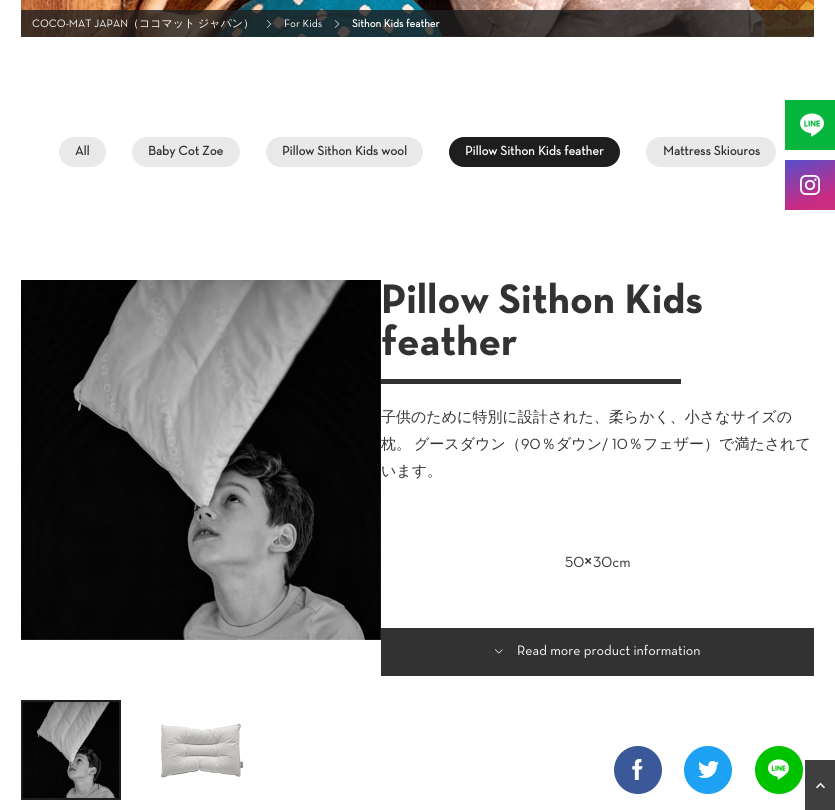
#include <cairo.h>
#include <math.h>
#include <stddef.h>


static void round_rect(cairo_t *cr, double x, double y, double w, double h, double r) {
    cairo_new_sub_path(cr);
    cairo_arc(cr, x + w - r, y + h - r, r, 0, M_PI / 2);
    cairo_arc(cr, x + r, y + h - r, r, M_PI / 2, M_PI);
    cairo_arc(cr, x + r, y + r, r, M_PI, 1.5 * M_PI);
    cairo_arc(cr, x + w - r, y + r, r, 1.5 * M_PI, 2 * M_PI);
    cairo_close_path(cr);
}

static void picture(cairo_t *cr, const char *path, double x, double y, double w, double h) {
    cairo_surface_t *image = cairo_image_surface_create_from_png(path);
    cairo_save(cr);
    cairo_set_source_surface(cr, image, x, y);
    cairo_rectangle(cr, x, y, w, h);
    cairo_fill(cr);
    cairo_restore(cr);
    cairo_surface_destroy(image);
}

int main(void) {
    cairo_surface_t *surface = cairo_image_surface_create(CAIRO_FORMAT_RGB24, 835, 810);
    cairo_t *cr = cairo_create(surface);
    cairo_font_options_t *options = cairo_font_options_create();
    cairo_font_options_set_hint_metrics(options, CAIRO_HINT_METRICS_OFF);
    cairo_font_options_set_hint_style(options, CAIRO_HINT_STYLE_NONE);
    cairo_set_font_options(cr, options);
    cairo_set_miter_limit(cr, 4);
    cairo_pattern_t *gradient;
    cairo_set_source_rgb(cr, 1, 1, 1);
    cairo_paint(cr);
    picture(cr, "img1.png", 21, 0, 793, 37);
    cairo_set_source_rgba(cr, 0.118, 0.118, 0.118, 0.8);
    cairo_rectangle(cr, 21, 10, 793, 27);
    cairo_fill(cr);
    cairo_select_font_face(cr, "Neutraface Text", CAIRO_FONT_SLANT_NORMAL, CAIRO_FONT_WEIGHT_NORMAL);
    cairo_set_font_size(cr, 11);
    cairo_set_source_rgb(cr, 1, 1, 1);
    cairo_move_to(cr, 32, 27);
    cairo_show_text(cr, "COCO-MAT JAPAN");
    cairo_select_font_face(cr, "WenQuanYi Zen Hei Medium", CAIRO_FONT_SLANT_NORMAL, CAIRO_FONT_WEIGHT_NORMAL);
    cairo_move_to(cr, 128, 27);
    cairo_show_text(cr, "（ココマット");
    cairo_move_to(cr, 198, 27);
    cairo_show_text(cr, "ジャパン）");
    picture(cr, "img2.png", 266, 20, 6, 8);
    cairo_select_font_face(cr, "Neutraface Text", CAIRO_FONT_SLANT_NORMAL, CAIRO_FONT_WEIGHT_NORMAL);
    cairo_move_to(cr, 284, 27);
    cairo_show_text(cr, "For Kids");
    picture(cr, "img3.png", 334, 20, 6, 8);
    cairo_select_font_face(cr, "Neutraface Text", CAIRO_FONT_SLANT_NORMAL, CAIRO_FONT_WEIGHT_BOLD);
    cairo_move_to(cr, 352, 27);
    cairo_show_text(cr, "Sithon Kids feather");
    cairo_set_source_rgb(cr, 0.914, 0.914, 0.914);
    round_rect(cr, 59, 137, 47, 30, 15);
    cairo_fill(cr);
    cairo_set_font_size(cr, 13);
    cairo_set_source_rgb(cr, 0.196, 0.196, 0.196);
    cairo_move_to(cr, 75, 155);
    cairo_show_text(cr, "All");
    cairo_set_source_rgb(cr, 0.914, 0.914, 0.914);
    round_rect(cr, 132, 137, 108, 30, 15);
    cairo_fill(cr);
    cairo_set_source_rgb(cr, 0.196, 0.196, 0.196);
    cairo_move_to(cr, 148, 155);
    cairo_show_text(cr, "Baby Cot Zoe");
    cairo_set_source_rgb(cr, 0.914, 0.914, 0.914);
    round_rect(cr, 266, 137, 157, 30, 15);
    cairo_fill(cr);
    cairo_set_source_rgb(cr, 0.196, 0.196, 0.196);
    cairo_move_to(cr, 282, 155);
    cairo_show_text(cr, "Pillow Sithon Kids wool");
    cairo_set_source_rgb(cr, 0.118, 0.118, 0.118);
    round_rect(cr, 449, 137, 171, 30, 15);
    cairo_fill(cr);
    cairo_set_source_rgb(cr, 1, 1, 1);
    cairo_move_to(cr, 465, 155);
    cairo_show_text(cr, "Pillow Sithon Kids feather");
    cairo_set_source_rgb(cr, 0.914, 0.914, 0.914);
    round_rect(cr, 646, 137, 130, 30, 15);
    cairo_fill(cr);
    cairo_set_source_rgb(cr, 0.196, 0.196, 0.196);
    cairo_move_to(cr, 663, 155);
    cairo_show_text(cr, "Mattress Skiouros");
    cairo_select_font_face(cr, "WenQuanYi Zen Hei Medium", CAIRO_FONT_SLANT_NORMAL, CAIRO_FONT_WEIGHT_NORMAL);
    cairo_set_font_size(cr, 15);
    cairo_move_to(cr, 381, 449);
    cairo_show_text(cr, "枕。");
    picture(cr, "img4.png", 21, 280, 360, 360);
    cairo_rectangle(cr, 22, 701, 98, 98);
    cairo_set_source_rgb(cr, 0.118, 0.118, 0.118);
    cairo_stroke(cr);
    picture(cr, "img5.png", 23, 702, 96, 96);
    picture(cr, "img6.png", 161, 723, 83, 55);
    cairo_select_font_face(cr, "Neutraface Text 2", CAIRO_FONT_SLANT_NORMAL, CAIRO_FONT_WEIGHT_BOLD);
    cairo_set_font_size(cr, 42);
    cairo_set_source_rgb(cr, 0.196, 0.196, 0.196);
    cairo_move_to(cr, 381, 313);
    cairo_show_text(cr, "Pillow Sithon Kids");
    cairo_move_to(cr, 381, 355);
    cairo_show_text(cr, "feather");
    cairo_rectangle(cr, 381, 379, 300, 5);
    cairo_fill(cr);
    cairo_select_font_face(cr, "WenQuanYi Zen Hei Medium", CAIRO_FONT_SLANT_NORMAL, CAIRO_FONT_WEIGHT_NORMAL);
    cairo_set_font_size(cr, 15);
    cairo_move_to(cr, 381, 422);
    cairo_show_text(cr, "子供のために特別に設計された、柔らかく、小さなサイズの");
    cairo_move_to(cr, 414, 449);
    cairo_show_text(cr, "グースダウン（");
    cairo_select_font_face(cr, "Neutraface Text", CAIRO_FONT_SLANT_NORMAL, CAIRO_FONT_WEIGHT_NORMAL);
    cairo_move_to(cr, 521, 449);
    cairo_show_text(cr, "90");
    cairo_select_font_face(cr, "WenQuanYi Zen Hei Medium", CAIRO_FONT_SLANT_NORMAL, CAIRO_FONT_WEIGHT_NORMAL);
    cairo_move_to(cr, 541, 449);
    cairo_show_text(cr, "％ダウン");
    cairo_select_font_face(cr, "Neutraface Text", CAIRO_FONT_SLANT_NORMAL, CAIRO_FONT_WEIGHT_NORMAL);
    cairo_move_to(cr, 602, 449);
    cairo_show_text(cr, "/ 10");
    cairo_select_font_face(cr, "WenQuanYi Zen Hei Medium", CAIRO_FONT_SLANT_NORMAL, CAIRO_FONT_WEIGHT_NORMAL);
    cairo_move_to(cr, 628, 449);
    cairo_show_text(cr, "％フェザー）で満たされて");
    cairo_move_to(cr, 381, 476);
    cairo_show_text(cr, "います。");
    cairo_select_font_face(cr, "Neutraface Text", CAIRO_FONT_SLANT_NORMAL, CAIRO_FONT_WEIGHT_NORMAL);
    cairo_move_to(cr, 565, 567);
    cairo_show_text(cr, "50");
    cairo_set_font_size(cr, 24);
    cairo_move_to(cr, 584, 567);
    cairo_show_text(cr, "×");
    cairo_set_font_size(cr, 15);
    cairo_move_to(cr, 593, 567);
    cairo_show_text(cr, "30cm");
    cairo_rectangle(cr, 381, 628, 433, 48);
    cairo_fill(cr);
    picture(cr, "img7.png", 495, 649, 8, 5);
    cairo_set_font_size(cr, 14);
    cairo_set_source_rgb(cr, 1, 1, 1);
    cairo_move_to(cr, 517, 655);
    cairo_show_text(cr, "Read more product information");
    cairo_set_source_rgb(cr, 0.231, 0.349, 0.596);
    cairo_new_path(cr);
    cairo_arc(cr, 638, 770, 24, 0, 2 * M_PI);
    cairo_fill(cr);
    picture(cr, "img8.png", 632, 759, 11, 21);
    cairo_set_source_rgb(cr, 0.114, 0.631, 0.949);
    cairo_arc(cr, 708, 770, 24, 0, 2 * M_PI);
    cairo_fill(cr);
    picture(cr, "img9.png", 698, 761, 21, 17);
    cairo_set_source_rgb(cr, 0, 0.765, 0);
    cairo_arc(cr, 779, 770, 24, 0, 2 * M_PI);
    cairo_fill(cr);
    picture(cr, "img10.png", 768, 759, 21, 21);
    cairo_set_source_rgb(cr, 0.247, 0.247, 0.247);
    cairo_rectangle(cr, 805, 760, 30, 50);
    cairo_fill(cr);
    picture(cr, "img11.png", 816, 782, 9, 7);
    cairo_set_source_rgb(cr, 0.027, 0.71, 0.231);
    cairo_rectangle(cr, 785, 100, 50, 50);
    cairo_fill(cr);
    picture(cr, "img12.png", 800, 113, 24, 24);
    gradient = cairo_pattern_create_linear(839, 141, 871, 229);
    cairo_pattern_add_color_stop_rgba(gradient, 0, 0.345, 0.302, 0.792, 1);
    cairo_pattern_add_color_stop_rgba(gradient, 0.5, 0.78, 0.173, 0.522, 1);
    cairo_pattern_add_color_stop_rgba(gradient, 1, 0.839, 0.22, 0.427, 1);
    cairo_set_source(cr, gradient);
    cairo_pattern_destroy(gradient);
    cairo_rectangle(cr, 785, 160, 50, 50);
    cairo_fill(cr);
    picture(cr, "img13.png", 800, 175, 20, 20);
    cairo_surface_write_to_png(surface, "page.png");
    cairo_font_options_destroy(options);
    cairo_destroy(cr);
    cairo_surface_destroy(surface);
    return 0;
}
